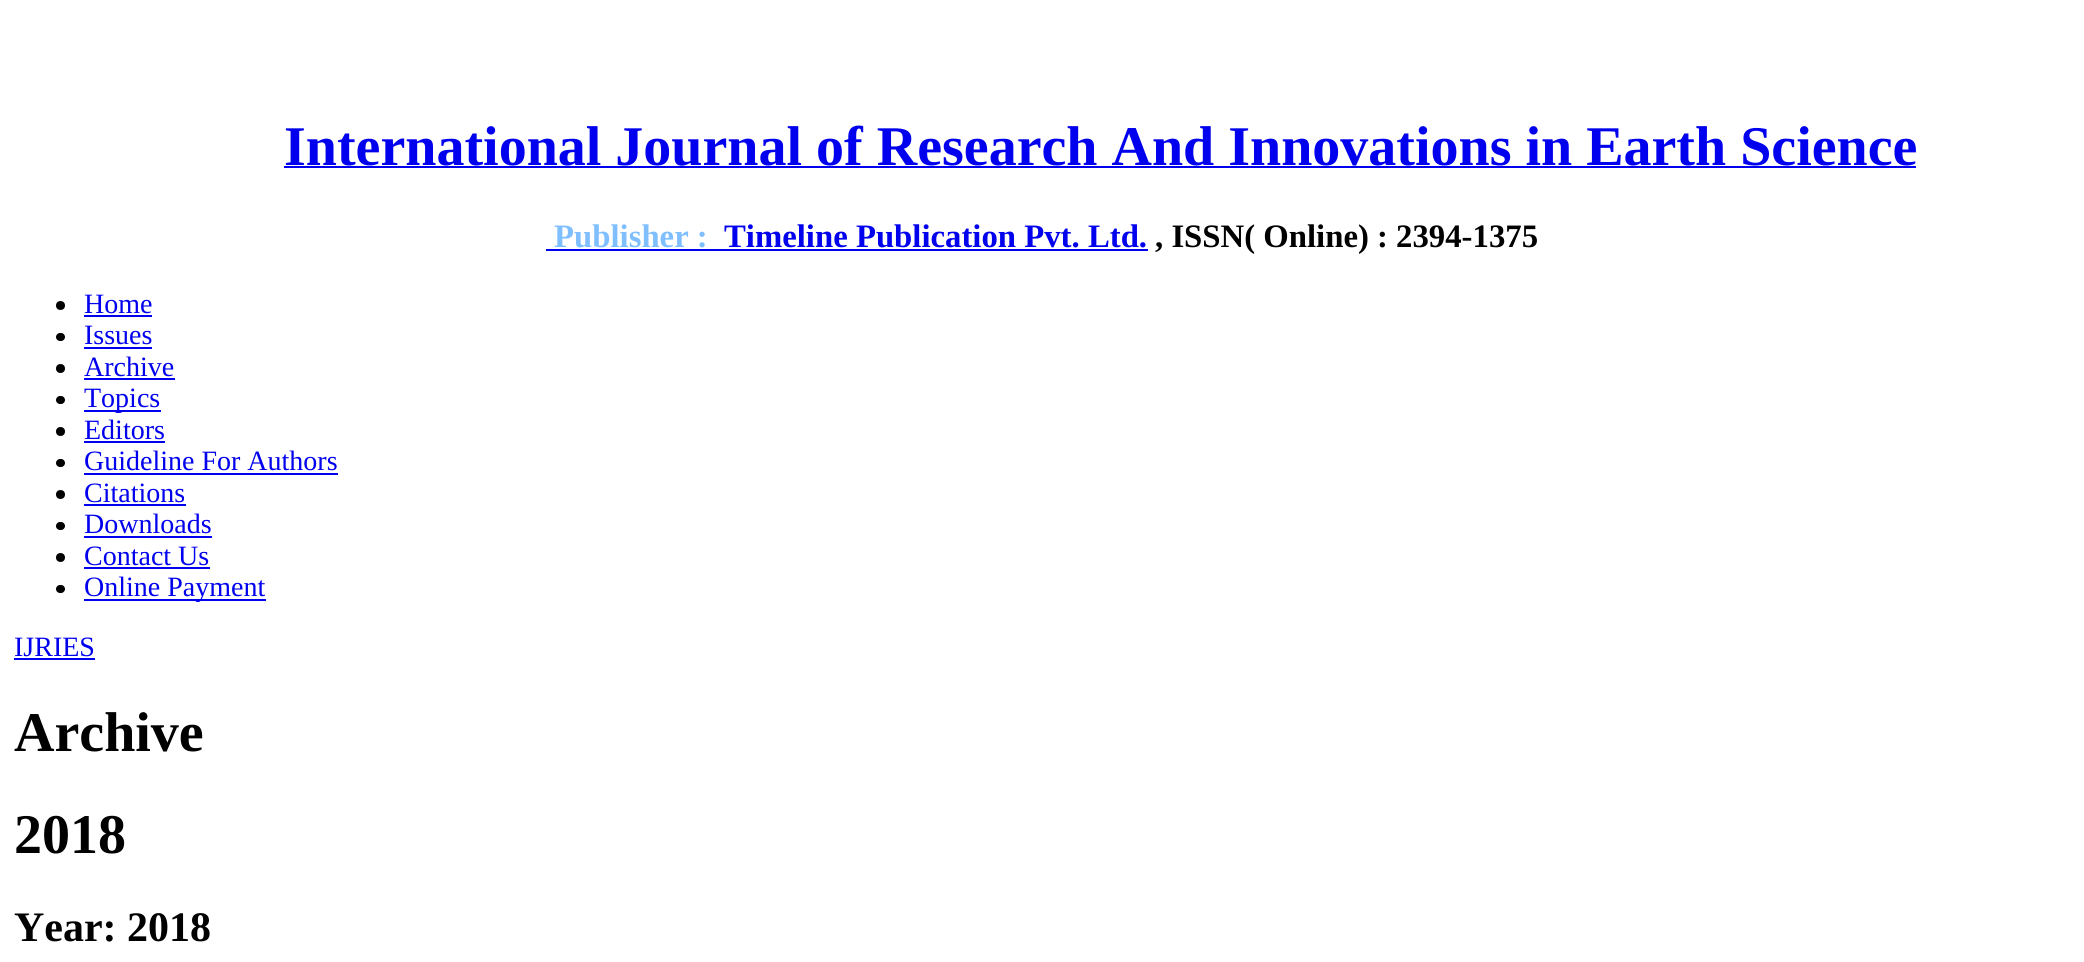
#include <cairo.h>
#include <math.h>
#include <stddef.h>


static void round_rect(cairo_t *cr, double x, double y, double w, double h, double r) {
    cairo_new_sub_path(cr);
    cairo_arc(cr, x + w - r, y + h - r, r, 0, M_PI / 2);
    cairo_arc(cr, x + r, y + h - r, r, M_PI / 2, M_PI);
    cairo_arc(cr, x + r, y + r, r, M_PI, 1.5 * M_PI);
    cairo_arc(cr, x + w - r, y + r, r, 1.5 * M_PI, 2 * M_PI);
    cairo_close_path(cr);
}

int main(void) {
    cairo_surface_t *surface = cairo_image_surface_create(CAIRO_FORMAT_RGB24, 2084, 962);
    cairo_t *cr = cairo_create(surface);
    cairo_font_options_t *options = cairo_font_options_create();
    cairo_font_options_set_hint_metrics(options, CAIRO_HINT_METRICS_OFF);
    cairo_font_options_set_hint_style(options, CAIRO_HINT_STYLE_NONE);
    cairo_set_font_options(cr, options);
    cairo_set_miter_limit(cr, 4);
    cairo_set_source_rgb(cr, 1, 1, 1);
    cairo_paint(cr);
    cairo_select_font_face(cr, "Liberation Serif", CAIRO_FONT_SLANT_NORMAL, CAIRO_FONT_WEIGHT_BOLD);
    cairo_set_font_size(cr, 56);
    cairo_set_source_rgb(cr, 0, 0, 0.933);
    cairo_move_to(cr, 284, 165);
    cairo_show_text(cr, "International Journal of Research And Innovations in Earth Science");
    cairo_rectangle(cr, 284, 166, 1632, 2);
    cairo_fill(cr);
    cairo_set_font_size(cr, 32.75);
    cairo_set_source_rgb(cr, 0.502, 0.749, 1);
    cairo_move_to(cr, 554, 247);
    cairo_show_text(cr, "Publisher :");
    cairo_set_source_rgb(cr, 0, 0, 0.933);
    cairo_rectangle(cr, 546, 249, 602, 2);
    cairo_fill(cr);
    cairo_move_to(cr, 724, 247);
    cairo_show_text(cr, "Timeline Publication Pvt. Ltd.");
    cairo_set_source_rgb(cr, 0, 0, 0);
    cairo_move_to(cr, 1155, 247);
    cairo_show_text(cr, ", ISSN( Online) : 2394-1375");
    cairo_new_path(cr);
    cairo_arc(cr, 60.5, 305.5, 4.5, 0, 2 * M_PI);
    cairo_fill(cr);
    cairo_select_font_face(cr, "Liberation Serif", CAIRO_FONT_SLANT_NORMAL, CAIRO_FONT_WEIGHT_NORMAL);
    cairo_set_font_size(cr, 28);
    cairo_set_source_rgb(cr, 0, 0, 0.933);
    cairo_move_to(cr, 84, 313);
    cairo_show_text(cr, "Home");
    cairo_rectangle(cr, 84, 315, 68, 2);
    cairo_fill(cr);
    cairo_set_source_rgb(cr, 0, 0, 0);
    round_rect(cr, 56, 333, 9, 8, 4);
    cairo_fill(cr);
    cairo_set_source_rgb(cr, 0, 0, 0.933);
    cairo_move_to(cr, 84, 344);
    cairo_show_text(cr, "Issues");
    cairo_rectangle(cr, 84, 347, 68, 2);
    cairo_fill(cr);
    cairo_set_source_rgb(cr, 0, 0, 0);
    cairo_arc(cr, 60.5, 368.5, 4.5, 0, 2 * M_PI);
    cairo_fill(cr);
    cairo_set_source_rgb(cr, 0, 0, 0.933);
    cairo_move_to(cr, 84, 376);
    cairo_show_text(cr, "Archive");
    cairo_rectangle(cr, 84, 378, 91, 2);
    cairo_fill(cr);
    cairo_set_source_rgb(cr, 0, 0, 0);
    round_rect(cr, 56, 396, 9, 8, 4);
    cairo_fill(cr);
    cairo_set_source_rgb(cr, 0, 0, 0.933);
    cairo_rectangle(cr, 84, 410, 77, 2);
    cairo_fill(cr);
    cairo_move_to(cr, 84, 407);
    cairo_show_text(cr, "Topics");
    cairo_set_source_rgb(cr, 0, 0, 0);
    cairo_new_path(cr);
    cairo_arc(cr, 60.5, 431.5, 4.5, 0, 2 * M_PI);
    cairo_fill(cr);
    cairo_set_source_rgb(cr, 0, 0, 0.933);
    cairo_move_to(cr, 84, 439);
    cairo_show_text(cr, "Editors");
    cairo_rectangle(cr, 84, 441, 81, 2);
    cairo_fill(cr);
    cairo_set_source_rgb(cr, 0, 0, 0);
    round_rect(cr, 56, 459, 9, 8, 4);
    cairo_fill(cr);
    cairo_set_source_rgb(cr, 0, 0, 0.933);
    cairo_move_to(cr, 84, 470);
    cairo_show_text(cr, "Guideline For Authors");
    cairo_rectangle(cr, 84, 473, 254, 2);
    cairo_fill(cr);
    cairo_set_source_rgb(cr, 0, 0, 0);
    cairo_arc(cr, 60.5, 494.5, 4.5, 0, 2 * M_PI);
    cairo_fill(cr);
    cairo_set_source_rgb(cr, 0, 0, 0.933);
    cairo_move_to(cr, 84, 502);
    cairo_show_text(cr, "Citations");
    cairo_rectangle(cr, 84, 504, 102, 2);
    cairo_fill(cr);
    cairo_set_source_rgb(cr, 0, 0, 0);
    round_rect(cr, 56, 522, 9, 8, 4);
    cairo_fill(cr);
    cairo_set_source_rgb(cr, 0, 0, 0.933);
    cairo_move_to(cr, 84, 533);
    cairo_show_text(cr, "Downloads");
    cairo_rectangle(cr, 84, 536, 128, 2);
    cairo_fill(cr);
    cairo_set_source_rgb(cr, 0, 0, 0);
    cairo_arc(cr, 60.5, 557.5, 4.5, 0, 2 * M_PI);
    cairo_fill(cr);
    cairo_set_source_rgb(cr, 0, 0, 0.933);
    cairo_move_to(cr, 84, 565);
    cairo_show_text(cr, "Contact Us");
    cairo_rectangle(cr, 84, 567, 126, 2);
    cairo_fill(cr);
    cairo_set_source_rgb(cr, 0, 0, 0);
    round_rect(cr, 56, 585, 9, 8, 4);
    cairo_fill(cr);
    cairo_set_source_rgb(cr, 0, 0, 0.933);
    cairo_rectangle(cr, 84, 599, 182, 2);
    cairo_fill(cr);
    cairo_move_to(cr, 84, 596);
    cairo_show_text(cr, "Online Payment");
    cairo_move_to(cr, 14, 656);
    cairo_show_text(cr, "IJRIES");
    cairo_rectangle(cr, 14, 658, 81, 2);
    cairo_fill(cr);
    cairo_select_font_face(cr, "Liberation Serif", CAIRO_FONT_SLANT_NORMAL, CAIRO_FONT_WEIGHT_BOLD);
    cairo_set_font_size(cr, 56);
    cairo_set_source_rgb(cr, 0, 0, 0);
    cairo_move_to(cr, 14, 751);
    cairo_show_text(cr, "Archive");
    cairo_move_to(cr, 14, 853);
    cairo_show_text(cr, "2018");
    cairo_set_font_size(cr, 42);
    cairo_move_to(cr, 14, 941);
    cairo_show_text(cr, "Year: 2018");
    cairo_surface_write_to_png(surface, "page.png");
    cairo_font_options_destroy(options);
    cairo_destroy(cr);
    cairo_surface_destroy(surface);
    return 0;
}
